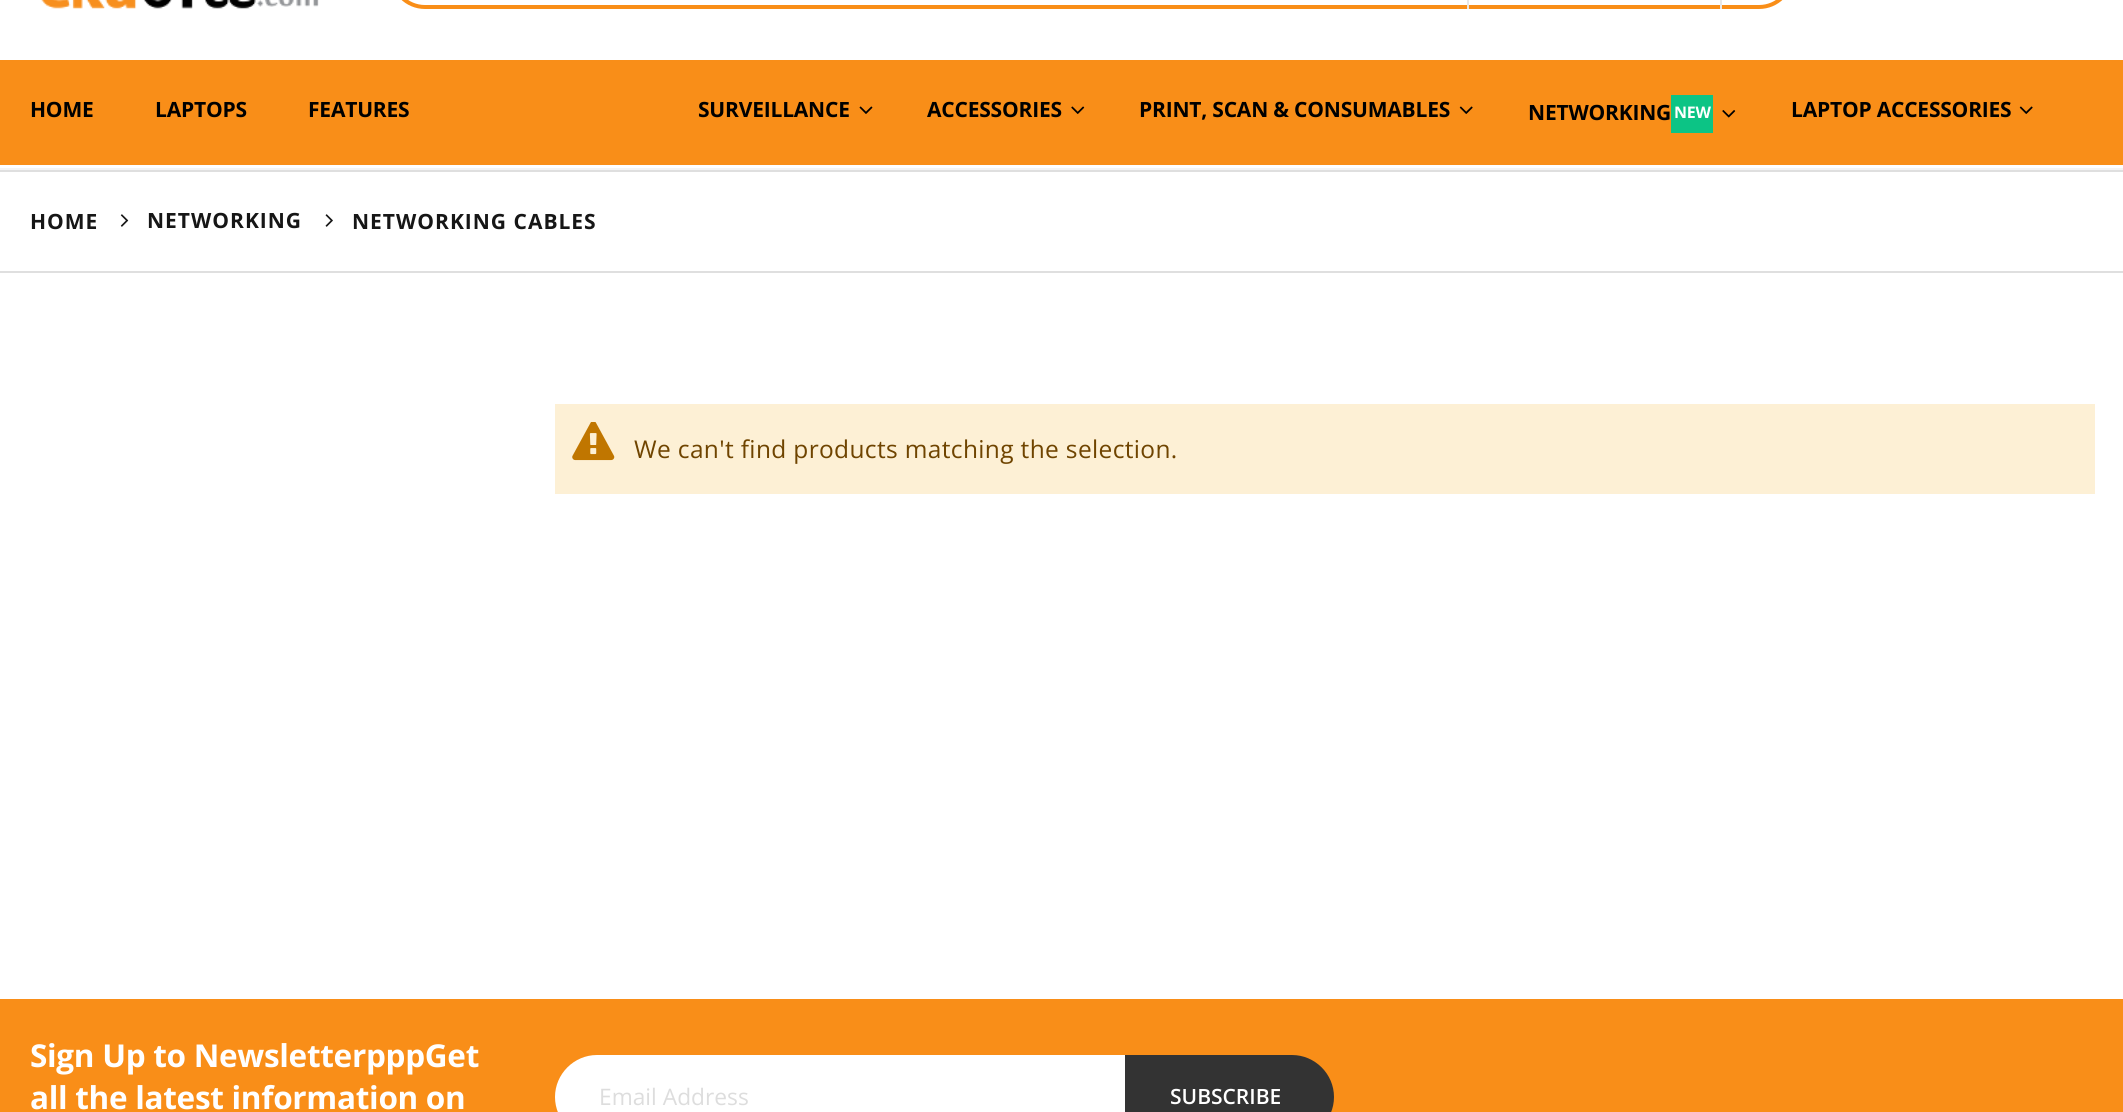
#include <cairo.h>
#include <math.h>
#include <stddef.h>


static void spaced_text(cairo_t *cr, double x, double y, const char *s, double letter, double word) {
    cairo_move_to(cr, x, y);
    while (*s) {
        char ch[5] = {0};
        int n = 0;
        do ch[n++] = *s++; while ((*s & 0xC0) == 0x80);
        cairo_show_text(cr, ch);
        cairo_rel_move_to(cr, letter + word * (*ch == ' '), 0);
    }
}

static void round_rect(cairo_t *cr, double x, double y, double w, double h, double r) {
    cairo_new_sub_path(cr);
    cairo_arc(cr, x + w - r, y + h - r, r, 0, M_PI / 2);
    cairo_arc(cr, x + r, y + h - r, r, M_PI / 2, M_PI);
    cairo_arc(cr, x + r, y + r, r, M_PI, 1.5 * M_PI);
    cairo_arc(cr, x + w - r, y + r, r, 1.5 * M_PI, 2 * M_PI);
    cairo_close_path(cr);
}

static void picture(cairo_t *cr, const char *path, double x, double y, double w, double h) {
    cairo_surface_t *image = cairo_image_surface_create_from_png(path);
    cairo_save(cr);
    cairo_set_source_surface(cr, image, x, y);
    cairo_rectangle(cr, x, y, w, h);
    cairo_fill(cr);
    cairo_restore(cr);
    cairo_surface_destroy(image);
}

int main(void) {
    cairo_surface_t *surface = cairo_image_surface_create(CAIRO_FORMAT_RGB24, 2123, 1112);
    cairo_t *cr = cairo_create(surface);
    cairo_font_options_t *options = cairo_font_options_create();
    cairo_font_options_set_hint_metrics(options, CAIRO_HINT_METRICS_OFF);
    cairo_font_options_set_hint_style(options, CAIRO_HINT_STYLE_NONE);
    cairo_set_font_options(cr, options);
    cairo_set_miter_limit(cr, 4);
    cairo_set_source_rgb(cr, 1, 1, 1);
    cairo_paint(cr);
    cairo_set_source_rgb(cr, 0.957, 0.957, 0.957);
    cairo_rectangle(cr, 0, 168, 2123, 2);
    cairo_fill(cr);
    picture(cr, "img1.png", 41, 0, 278, 9);
    round_rect(cr, 392, -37, 1400, 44, 33);
    cairo_set_source_rgb(cr, 0.973, 0.557, 0.094);
    cairo_set_line_width(cr, 4);
    cairo_stroke(cr);
    cairo_set_source_rgb(cr, 0.906, 0.906, 0.906);
    cairo_rectangle(cr, 1720, 0, 2, 9);
    cairo_fill(cr);
    cairo_rectangle(cr, 1467, 0, 2, 9);
    cairo_fill(cr);
    cairo_set_source_rgb(cr, 0.973, 0.557, 0.094);
    cairo_rectangle(cr, 0, 60, 2123, 105);
    cairo_fill(cr);
    cairo_select_font_face(cr, "Open Sans", CAIRO_FONT_SLANT_NORMAL, CAIRO_FONT_WEIGHT_BOLD);
    cairo_set_font_size(cr, 21);
    cairo_set_source_rgb(cr, 0, 0, 0);
    spaced_text(cr, 30, 117, "HOME", -0.2, 0);
    spaced_text(cr, 155, 117, "LAPTOPS", -0.2, 0);
    spaced_text(cr, 308, 117, "FEATURES", -0.2, 0);
    spaced_text(cr, 698, 117, "SURVEILLANCE", -0.2, 0);
    picture(cr, "img2.png", 859, 106, 14, 8);
    spaced_text(cr, 927, 117, "ACCESSORIES", -0.2, 0);
    picture(cr, "img3.png", 1071, 106, 14, 8);
    spaced_text(cr, 1139, 117, "PRINT, SCAN & CONSUMABLES", -0.2, 0);
    picture(cr, "img4.png", 1459, 106, 14, 8);
    spaced_text(cr, 1528, 120, "NETWORKING", -0.2, 0);
    cairo_set_source_rgb(cr, 0.047, 0.769, 0.522);
    cairo_rectangle(cr, 1671, 95, 42, 38);
    cairo_fill(cr);
    cairo_set_font_size(cr, 16);
    cairo_set_source_rgb(cr, 1, 1, 1);
    spaced_text(cr, 1674, 118, "NEW", -0.2, 0);
    picture(cr, "img5.png", 1722, 110, 14, 8);
    cairo_set_font_size(cr, 21);
    cairo_set_source_rgb(cr, 0, 0, 0);
    spaced_text(cr, 1791, 117, "LAPTOP ACCESSORIES", -0.2, 0);
    picture(cr, "img4.png", 2019, 106, 14, 8);
    cairo_set_source_rgb(cr, 0.875, 0.875, 0.875);
    cairo_rectangle(cr, 0, 170, 2123, 2);
    cairo_fill(cr);
    cairo_rectangle(cr, 0, 271, 2123, 2);
    cairo_fill(cr);
    cairo_set_source_rgb(cr, 0.086, 0.086, 0.086);
    spaced_text(cr, 30, 229, "HOME", 1, 0);
    picture(cr, "img6.png", 120, 214, 9, 13);
    spaced_text(cr, 147, 228, "NETWORKING", 1, 0);
    picture(cr, "img7.png", 325, 214, 8, 13);
    spaced_text(cr, 352, 229, "NETWORKING CABLES", 1, 0);
    cairo_set_source_rgb(cr, 0.992, 0.941, 0.835);
    cairo_rectangle(cr, 555, 404, 1540, 90);
    cairo_fill(cr);
    picture(cr, "img8.png", 572, 422, 43, 39);
    cairo_select_font_face(cr, "Open Sans", CAIRO_FONT_SLANT_NORMAL, CAIRO_FONT_WEIGHT_NORMAL);
    cairo_set_font_size(cr, 24.5);
    cairo_set_source_rgb(cr, 0.435, 0.267, 0);
    spaced_text(cr, 634, 458, "We can't find products matching the selection.", 0.35, 0);
    cairo_set_source_rgb(cr, 0.973, 0.557, 0.094);
    cairo_rectangle(cr, 0, 999, 2123, 113);
    cairo_fill(cr);
    cairo_select_font_face(cr, "Open Sans", CAIRO_FONT_SLANT_NORMAL, CAIRO_FONT_WEIGHT_BOLD);
    cairo_set_font_size(cr, 31.5);
    cairo_set_source_rgb(cr, 1, 1, 1);
    spaced_text(cr, 30, 1067, "Sign Up to NewsletterpppGet", -0.3, 0);
    spaced_text(cr, 30, 1109, "all the latest information on", -0.3, 0);
    cairo_new_path(cr);
    cairo_move_to(cr, 597, 1055);
    cairo_line_to(cr, 1125, 1055);
    cairo_line_to(cr, 1125, 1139);
    cairo_line_to(cr, 597, 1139);
    cairo_curve_to(cr, 574, 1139, 555, 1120, 555, 1097);
    cairo_curve_to(cr, 555, 1074, 574, 1055, 597, 1055);
    cairo_close_path(cr);
    cairo_fill(cr);
    cairo_select_font_face(cr, "Open Sans", CAIRO_FONT_SLANT_NORMAL, CAIRO_FONT_WEIGHT_NORMAL);
    cairo_set_font_size(cr, 22.75);
    cairo_set_source_rgb(cr, 0.867, 0.867, 0.867);
    cairo_move_to(cr, 599, 1105);
    cairo_show_text(cr, "Email Address");
    cairo_set_source_rgb(cr, 0.2, 0.2, 0.2);
    cairo_new_path(cr);
    cairo_move_to(cr, 1125, 1055);
    cairo_line_to(cr, 1292, 1055);
    cairo_curve_to(cr, 1315, 1055, 1334, 1074, 1334, 1097);
    cairo_curve_to(cr, 1334, 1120, 1315, 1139, 1292, 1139);
    cairo_line_to(cr, 1125, 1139);
    cairo_close_path(cr);
    cairo_fill(cr);
    cairo_select_font_face(cr, "Open Sans SemiBold", CAIRO_FONT_SLANT_NORMAL, CAIRO_FONT_WEIGHT_NORMAL);
    cairo_set_font_size(cr, 21);
    cairo_set_source_rgb(cr, 1, 1, 1);
    cairo_move_to(cr, 1170, 1104);
    cairo_show_text(cr, "SUBSCRIBE");
    cairo_surface_write_to_png(surface, "page.png");
    cairo_font_options_destroy(options);
    cairo_destroy(cr);
    cairo_surface_destroy(surface);
    return 0;
}
